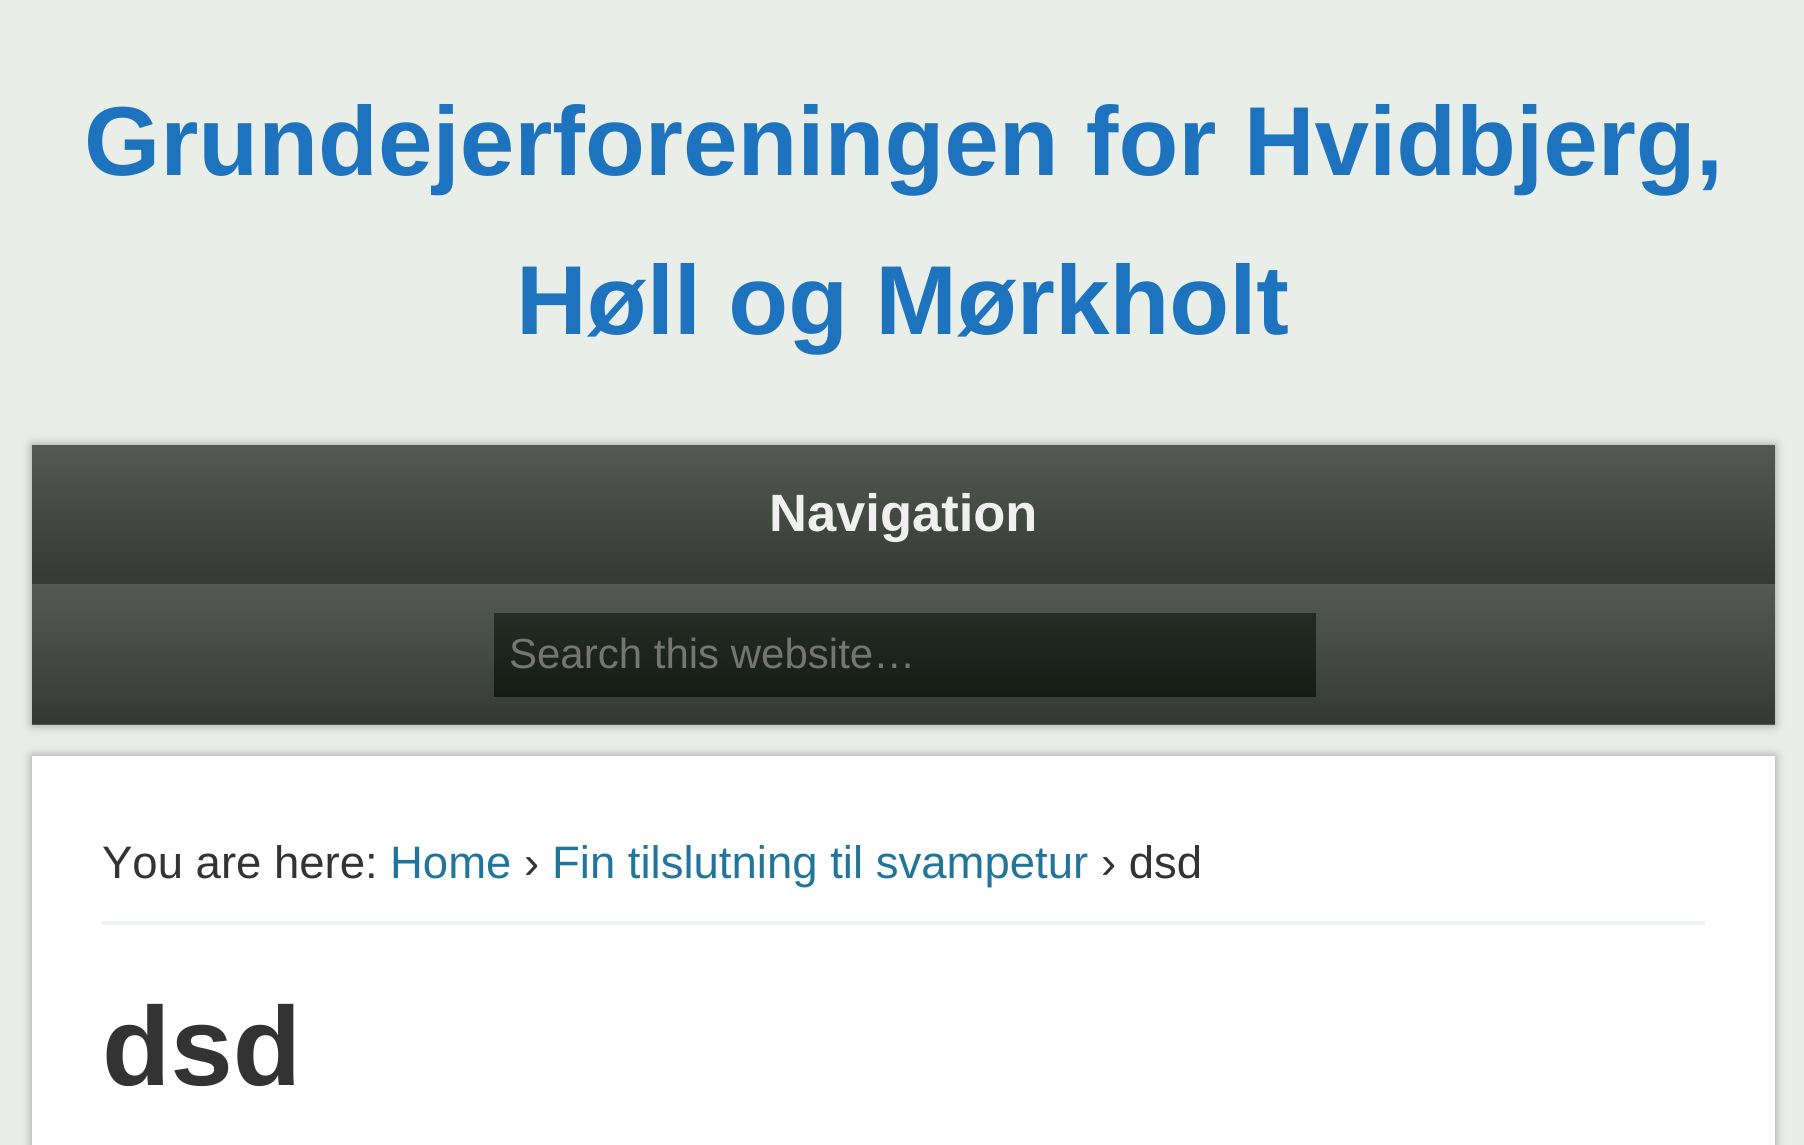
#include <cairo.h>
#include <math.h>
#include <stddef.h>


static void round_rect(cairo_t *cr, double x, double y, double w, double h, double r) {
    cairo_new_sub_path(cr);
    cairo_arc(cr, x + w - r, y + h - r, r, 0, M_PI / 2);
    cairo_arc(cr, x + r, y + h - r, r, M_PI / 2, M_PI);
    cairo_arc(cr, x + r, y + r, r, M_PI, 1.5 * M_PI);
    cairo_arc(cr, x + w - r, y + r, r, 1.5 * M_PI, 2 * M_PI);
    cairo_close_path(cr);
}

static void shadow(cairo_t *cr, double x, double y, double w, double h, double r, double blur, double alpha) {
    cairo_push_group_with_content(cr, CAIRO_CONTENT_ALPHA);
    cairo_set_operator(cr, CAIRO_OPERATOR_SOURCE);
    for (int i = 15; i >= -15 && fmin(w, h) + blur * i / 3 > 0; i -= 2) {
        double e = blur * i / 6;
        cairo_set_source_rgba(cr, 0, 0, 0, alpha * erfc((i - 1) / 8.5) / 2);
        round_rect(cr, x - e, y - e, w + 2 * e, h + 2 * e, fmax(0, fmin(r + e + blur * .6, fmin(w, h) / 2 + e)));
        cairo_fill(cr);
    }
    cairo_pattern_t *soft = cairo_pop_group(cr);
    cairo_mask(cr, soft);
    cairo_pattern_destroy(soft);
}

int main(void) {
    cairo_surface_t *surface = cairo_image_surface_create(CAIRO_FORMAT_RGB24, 1804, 1145);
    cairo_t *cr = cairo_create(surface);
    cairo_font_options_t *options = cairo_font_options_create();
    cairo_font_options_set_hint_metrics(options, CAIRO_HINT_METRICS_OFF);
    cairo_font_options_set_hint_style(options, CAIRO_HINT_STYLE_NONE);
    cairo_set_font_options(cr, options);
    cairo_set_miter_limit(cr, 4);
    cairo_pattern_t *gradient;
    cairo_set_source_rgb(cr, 0.914, 0.933, 0.914);
    cairo_paint(cr);
    cairo_select_font_face(cr, "Liberation Sans", CAIRO_FONT_SLANT_NORMAL, CAIRO_FONT_WEIGHT_BOLD);
    cairo_set_font_size(cr, 98);
    cairo_set_source_rgb(cr, 0.118, 0.451, 0.745);
    cairo_move_to(cr, 84, 175);
    cairo_show_text(cr, "Grundejerforeningen for Hvidbjerg,");
    cairo_move_to(cr, 516, 334);
    cairo_show_text(cr, "Høll og Mørkholt");
    cairo_set_source_rgb(cr, 0.6, 0.6, 0.6);
    shadow(cr, 32, 445, 1743, 280, 0, 5, 1);
    gradient = cairo_pattern_create_linear(903, 444, 903, 724);
    cairo_pattern_add_color_stop_rgba(gradient, 0, 0.329, 0.349, 0.329, 1);
    cairo_pattern_add_color_stop_rgba(gradient, 0.5, 0.204, 0.224, 0.204, 1);
    cairo_pattern_add_color_stop_rgba(gradient, 0.5, 0.329, 0.349, 0.329, 1);
    cairo_pattern_add_color_stop_rgba(gradient, 1, 0.204, 0.224, 0.204, 1);
    cairo_set_source(cr, gradient);
    cairo_pattern_destroy(gradient);
    cairo_rectangle(cr, 32, 445, 1743, 140);
    cairo_fill(cr);
    cairo_set_font_size(cr, 52.5);
    cairo_set_source_rgb(cr, 0.941, 0.941, 0.941);
    cairo_move_to(cr, 769, 531);
    cairo_show_text(cr, "Navigation");
    gradient = cairo_pattern_create_linear(903, 584, 903, 864);
    cairo_pattern_add_color_stop_rgba(gradient, 0, 0.329, 0.349, 0.329, 1);
    cairo_pattern_add_color_stop_rgba(gradient, 0.5, 0.204, 0.224, 0.204, 1);
    cairo_pattern_add_color_stop_rgba(gradient, 0.5, 0.329, 0.349, 0.329, 1);
    cairo_pattern_add_color_stop_rgba(gradient, 1, 0.204, 0.224, 0.204, 1);
    cairo_set_source(cr, gradient);
    cairo_pattern_destroy(gradient);
    cairo_rectangle(cr, 32, 585, 1743, 140);
    cairo_fill(cr);
    gradient = cairo_pattern_create_linear(905, 613, 905, 697);
    cairo_pattern_add_color_stop_rgba(gradient, 0, 0.145, 0.173, 0.145, 1);
    cairo_pattern_add_color_stop_rgba(gradient, 1, 0.082, 0.11, 0.082, 1);
    cairo_set_source(cr, gradient);
    cairo_pattern_destroy(gradient);
    cairo_rectangle(cr, 494, 613, 822, 84);
    cairo_fill(cr);
    cairo_select_font_face(cr, "Liberation Sans", CAIRO_FONT_SLANT_NORMAL, CAIRO_FONT_WEIGHT_NORMAL);
    cairo_set_font_size(cr, 42);
    cairo_set_source_rgb(cr, 0.459, 0.459, 0.459);
    cairo_move_to(cr, 509, 668);
    cairo_show_text(cr, "Search this website…");
    cairo_set_source_rgb(cr, 0.6, 0.6, 0.6);
    shadow(cr, 32, 756, 1743, 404, 0, 5, 1);
    cairo_set_source_rgb(cr, 1, 1, 1);
    cairo_rectangle(cr, 32, 756, 1743, 389);
    cairo_fill(cr);
    cairo_set_source_rgb(cr, 0.937, 0.953, 0.937);
    cairo_rectangle(cr, 102, 921, 1603, 4);
    cairo_fill(cr);
    cairo_set_font_size(cr, 45.5);
    cairo_set_source_rgb(cr, 0.2, 0.2, 0.2);
    cairo_move_to(cr, 102, 878);
    cairo_show_text(cr, "You are here:");
    cairo_set_source_rgb(cr, 0.129, 0.459, 0.608);
    cairo_move_to(cr, 390, 878);
    cairo_show_text(cr, "Home");
    cairo_set_source_rgb(cr, 0.2, 0.2, 0.2);
    cairo_move_to(cr, 524, 878);
    cairo_show_text(cr, "›");
    cairo_set_source_rgb(cr, 0.129, 0.459, 0.608);
    cairo_move_to(cr, 552, 878);
    cairo_show_text(cr, "Fin tilslutning til svampetur");
    cairo_set_source_rgb(cr, 0.2, 0.2, 0.2);
    cairo_move_to(cr, 1101, 878);
    cairo_show_text(cr, "› dsd");
    cairo_select_font_face(cr, "Liberation Sans", CAIRO_FONT_SLANT_NORMAL, CAIRO_FONT_WEIGHT_BOLD);
    cairo_set_font_size(cr, 112);
    cairo_move_to(cr, 102, 1085);
    cairo_show_text(cr, "dsd");
    cairo_surface_write_to_png(surface, "page.png");
    cairo_font_options_destroy(options);
    cairo_destroy(cr);
    cairo_surface_destroy(surface);
    return 0;
}
